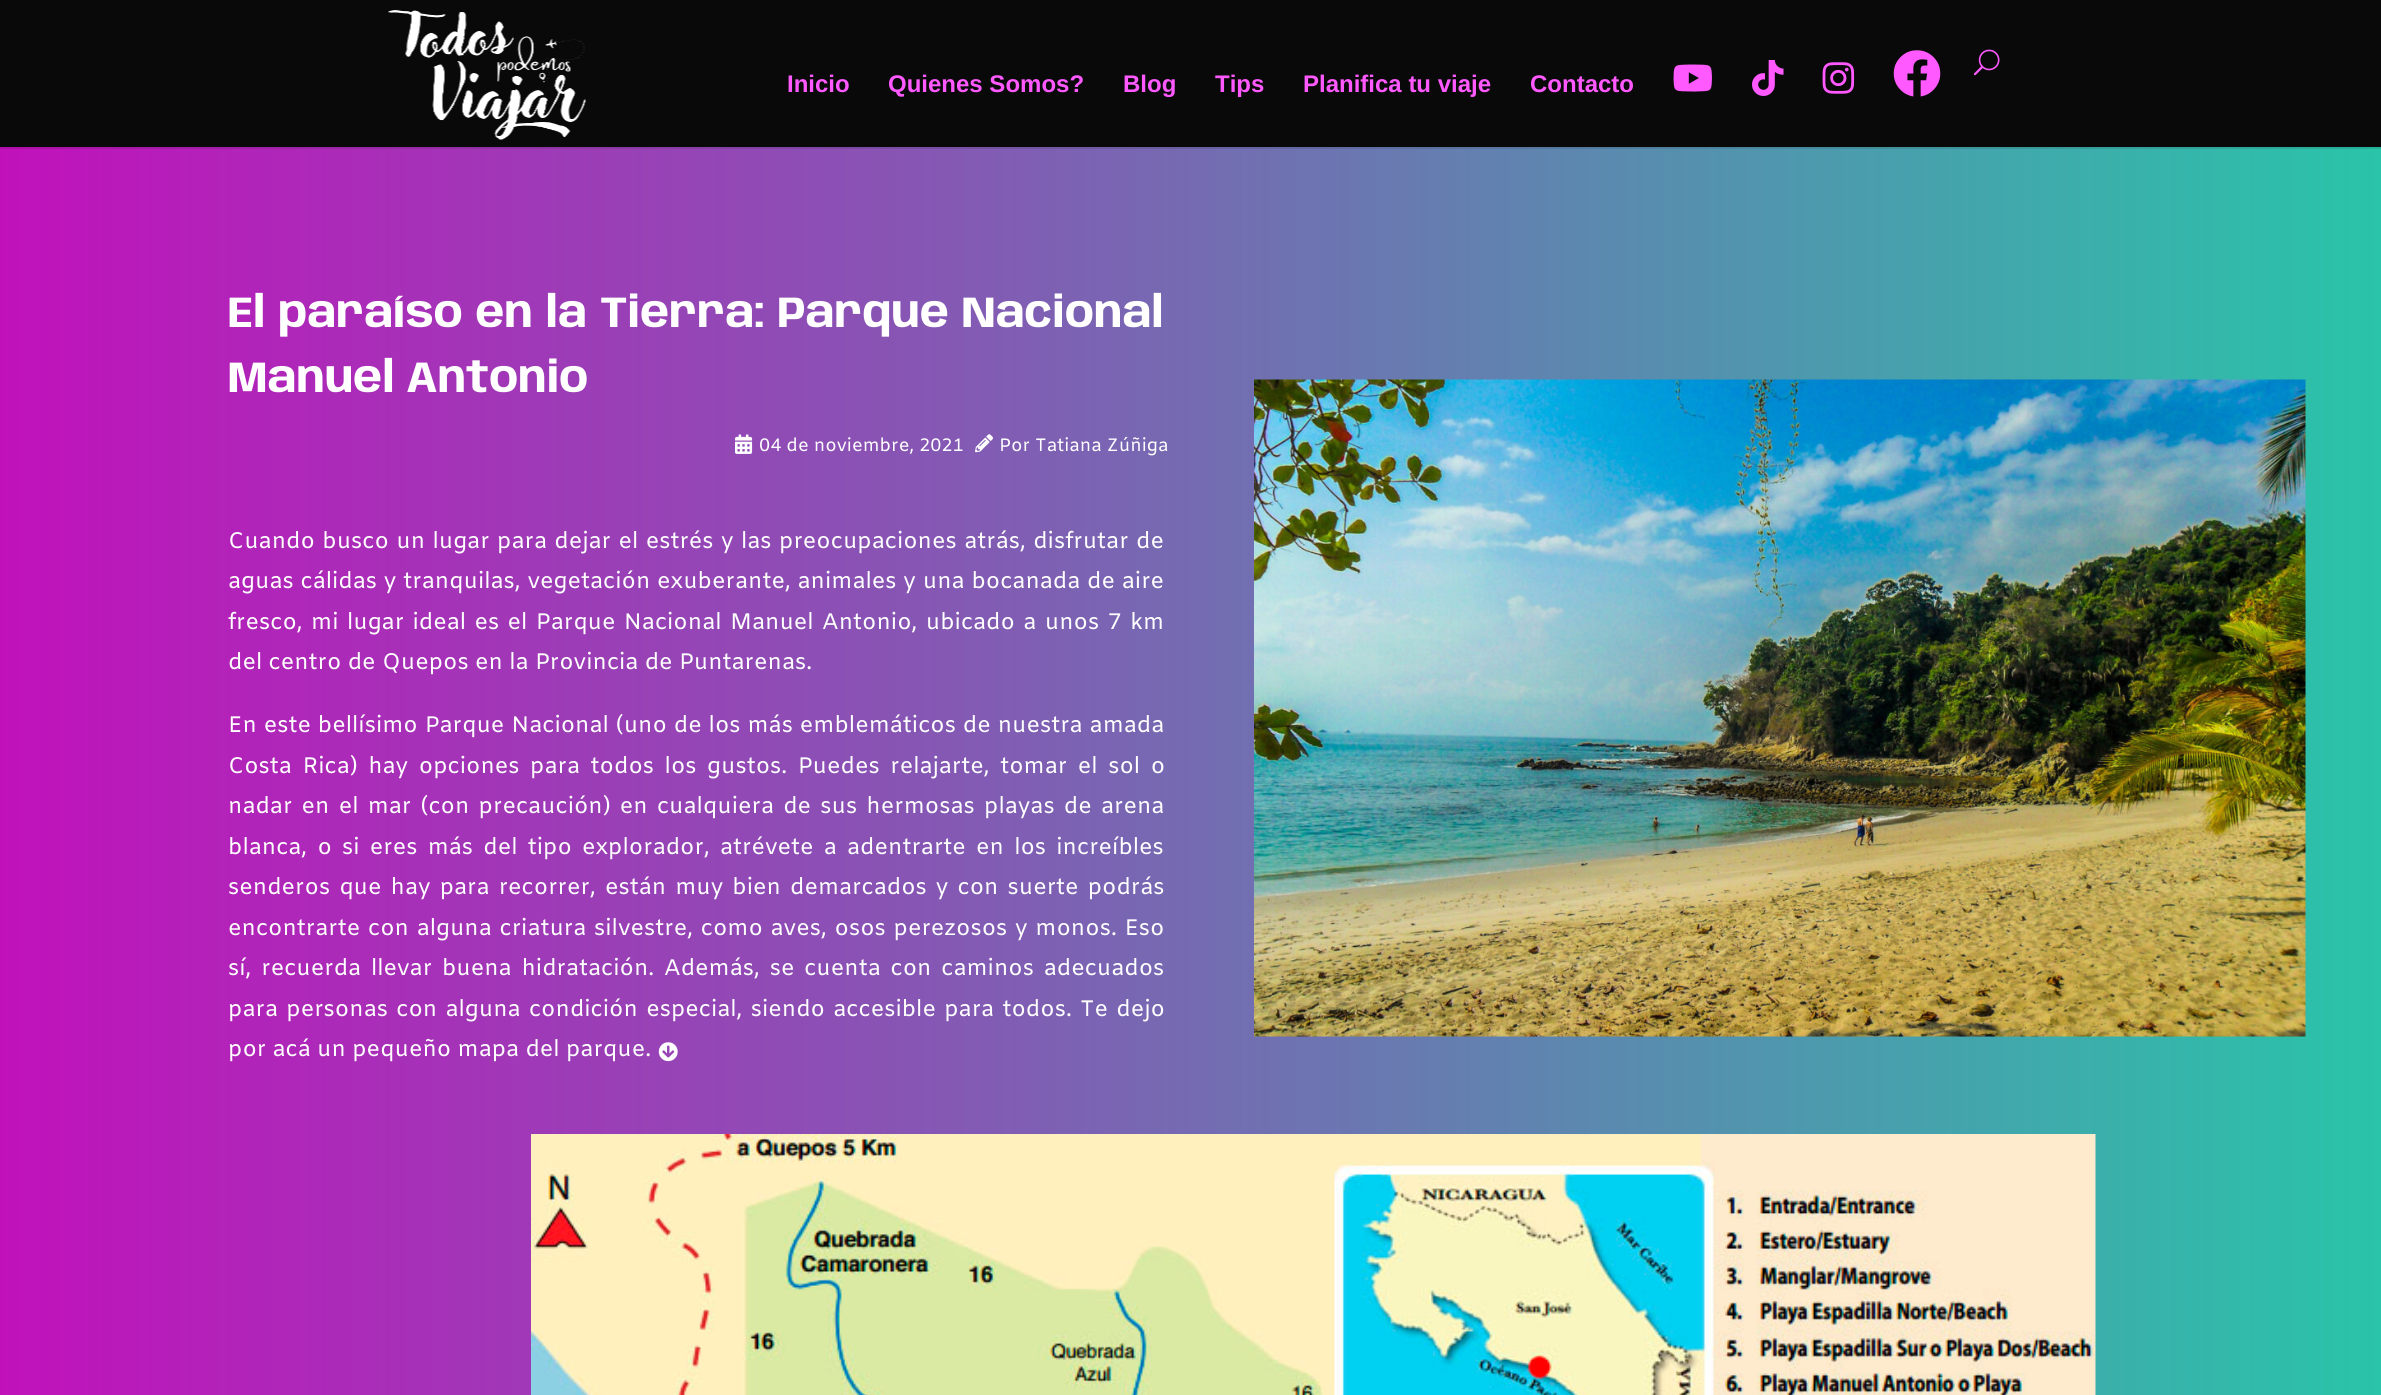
#include <cairo.h>
#include <math.h>
#include <stddef.h>


static void spaced_text(cairo_t *cr, double x, double y, const char *s, double letter, double word) {
    cairo_move_to(cr, x, y);
    while (*s) {
        char ch[5] = {0};
        int n = 0;
        do ch[n++] = *s++; while ((*s & 0xC0) == 0x80);
        cairo_show_text(cr, ch);
        cairo_rel_move_to(cr, letter + word * (*ch == ' '), 0);
    }
}

static void picture(cairo_t *cr, const char *path, double x, double y, double w, double h) {
    cairo_surface_t *image = cairo_image_surface_create_from_png(path);
    cairo_save(cr);
    cairo_set_source_surface(cr, image, x, y);
    cairo_rectangle(cr, x, y, w, h);
    cairo_fill(cr);
    cairo_restore(cr);
    cairo_surface_destroy(image);
}

int main(void) {
    cairo_surface_t *surface = cairo_image_surface_create(CAIRO_FORMAT_RGB24, 2381, 1395);
    cairo_t *cr = cairo_create(surface);
    cairo_font_options_t *options = cairo_font_options_create();
    cairo_font_options_set_hint_metrics(options, CAIRO_HINT_METRICS_OFF);
    cairo_font_options_set_hint_style(options, CAIRO_HINT_STYLE_NONE);
    cairo_set_font_options(cr, options);
    cairo_set_miter_limit(cr, 4);
    cairo_pattern_t *gradient;
    cairo_set_source_rgb(cr, 1, 1, 1);
    cairo_paint(cr);
    cairo_set_source_rgb(cr, 0.039, 0.039, 0.039);
    cairo_rectangle(cr, 0, 0, 2381, 147);
    cairo_fill(cr);
    picture(cr, "img1.png", 388, 10, 198, 130);
    picture(cr, "img2.png", 1973, 49, 27, 27);
    cairo_select_font_face(cr, "Liberation Sans", CAIRO_FONT_SLANT_NORMAL, CAIRO_FONT_WEIGHT_BOLD);
    cairo_set_font_size(cr, 24);
    cairo_set_source_rgb(cr, 1, 0.349, 1);
    cairo_move_to(cr, 787, 92);
    cairo_show_text(cr, "Inicio");
    cairo_move_to(cr, 888, 92);
    cairo_show_text(cr, "Quienes Somos?");
    cairo_move_to(cr, 1123, 92);
    cairo_show_text(cr, "Blog");
    cairo_move_to(cr, 1215, 92);
    cairo_show_text(cr, "Tips");
    cairo_move_to(cr, 1303, 92);
    cairo_show_text(cr, "Planifica tu viaje");
    cairo_move_to(cr, 1530, 92);
    cairo_show_text(cr, "Contacto");
    picture(cr, "img3.png", 1673, 64, 39, 28);
    picture(cr, "img4.png", 1752, 60, 32, 36);
    picture(cr, "img5.png", 1822, 62, 33, 32);
    picture(cr, "img6.png", 1893, 50, 48, 47);
    gradient = cairo_pattern_create_linear(0, 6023, 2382, 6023);
    cairo_pattern_add_color_stop_rgba(gradient, 0, 0.757, 0.067, 0.733, 1);
    cairo_pattern_add_color_stop_rgba(gradient, 1, 0.161, 0.769, 0.663, 1);
    cairo_set_source(cr, gradient);
    cairo_pattern_destroy(gradient);
    cairo_rectangle(cr, 0, 149, 2381, 1246);
    cairo_fill(cr);
    gradient = cairo_pattern_create_linear(0, 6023, 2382, 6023);
    cairo_pattern_add_color_stop_rgba(gradient, 0, 0.682, 0.059, 0.659, 1);
    cairo_pattern_add_color_stop_rgba(gradient, 1, 0.145, 0.69, 0.596, 1);
    cairo_set_source(cr, gradient);
    cairo_pattern_destroy(gradient);
    cairo_rectangle(cr, 0, 147, 2381, 2);
    cairo_fill(cr);
    cairo_select_font_face(cr, "Anybody", CAIRO_FONT_SLANT_NORMAL, CAIRO_FONT_WEIGHT_BOLD);
    cairo_set_font_size(cr, 43.5);
    cairo_set_source_rgb(cr, 1, 1, 1);
    spaced_text(cr, 228, 327, "El paraíso en la Tierra: Parque Nacional", 0, 1.5);
    cairo_move_to(cr, 228, 392);
    cairo_show_text(cr, "Manuel Antonio");
    picture(cr, "img7.png", 735, 434, 18, 20);
    picture(cr, "img8.png", 975, 434, 18, 19);
    cairo_select_font_face(cr, "Amiko", CAIRO_FONT_SLANT_NORMAL, CAIRO_FONT_WEIGHT_NORMAL);
    cairo_set_font_size(cr, 18);
    cairo_move_to(cr, 759, 451);
    cairo_show_text(cr, "04 de noviembre, 2021       Por Tatiana Zúñiga");
    cairo_set_font_size(cr, 22.5);
    spaced_text(cr, 228, 548, "Cuando busco un lugar para dejar el estrés y las preocupaciones atrás, disfrutar de", 0, 1.1);
    spaced_text(cr, 228, 588, "aguas cálidas y tranquilas, vegetación exuberante, animales y una bocanada de aire", 0, 0.5);
    spaced_text(cr, 228, 629, "fresco, mi lugar ideal es el Parque Nacional Manuel Antonio, ubicado a unos 7 km", 0, 2.1);
    cairo_move_to(cr, 228, 669);
    cairo_show_text(cr, "del centro de Quepos en la Provincia de Puntarenas.");
    spaced_text(cr, 228, 732, "En este bellísimo Parque Nacional (uno de los más emblemáticos de nuestra amada", 0, 0.6);
    spaced_text(cr, 228, 773, "Costa Rica) hay opciones para todos los gustos. Puedes relajarte, tomar el sol o", 0, 4.25);
    spaced_text(cr, 228, 813, "nadar en el mar (con precaución) en cualquiera de sus hermosas playas de arena", 0, 2.9);
    spaced_text(cr, 228, 854, "blanca, o si eres más del tipo explorador, atrévete a adentrarte en los increíbles", 0, 3.9);
    spaced_text(cr, 228, 894, "senderos que hay para recorrer, están muy bien demarcados y con suerte podrás", 0, 2.75);
    spaced_text(cr, 228, 935, "encontrarte con alguna criatura silvestre, como aves, osos perezosos y monos. Eso", 0, 1.4);
    spaced_text(cr, 228, 975, "sí, recuerda llevar buena hidratación. Además, se cuenta con caminos adecuados", 0, 3.5);
    spaced_text(cr, 228, 1016, "para personas con alguna condición especial, siendo accesible para todos. Te dejo", 0, 2);
    cairo_move_to(cr, 228, 1056);
    cairo_show_text(cr, "por acá un pequeño mapa del parque.");
    picture(cr, "img9.png", 658, 1042, 20, 20);
    picture(cr, "img10.png", 1254, 379, 1052, 658);
    picture(cr, "img11.png", 531, 1134, 1565, 261);
    cairo_surface_write_to_png(surface, "page.png");
    cairo_font_options_destroy(options);
    cairo_destroy(cr);
    cairo_surface_destroy(surface);
    return 0;
}
